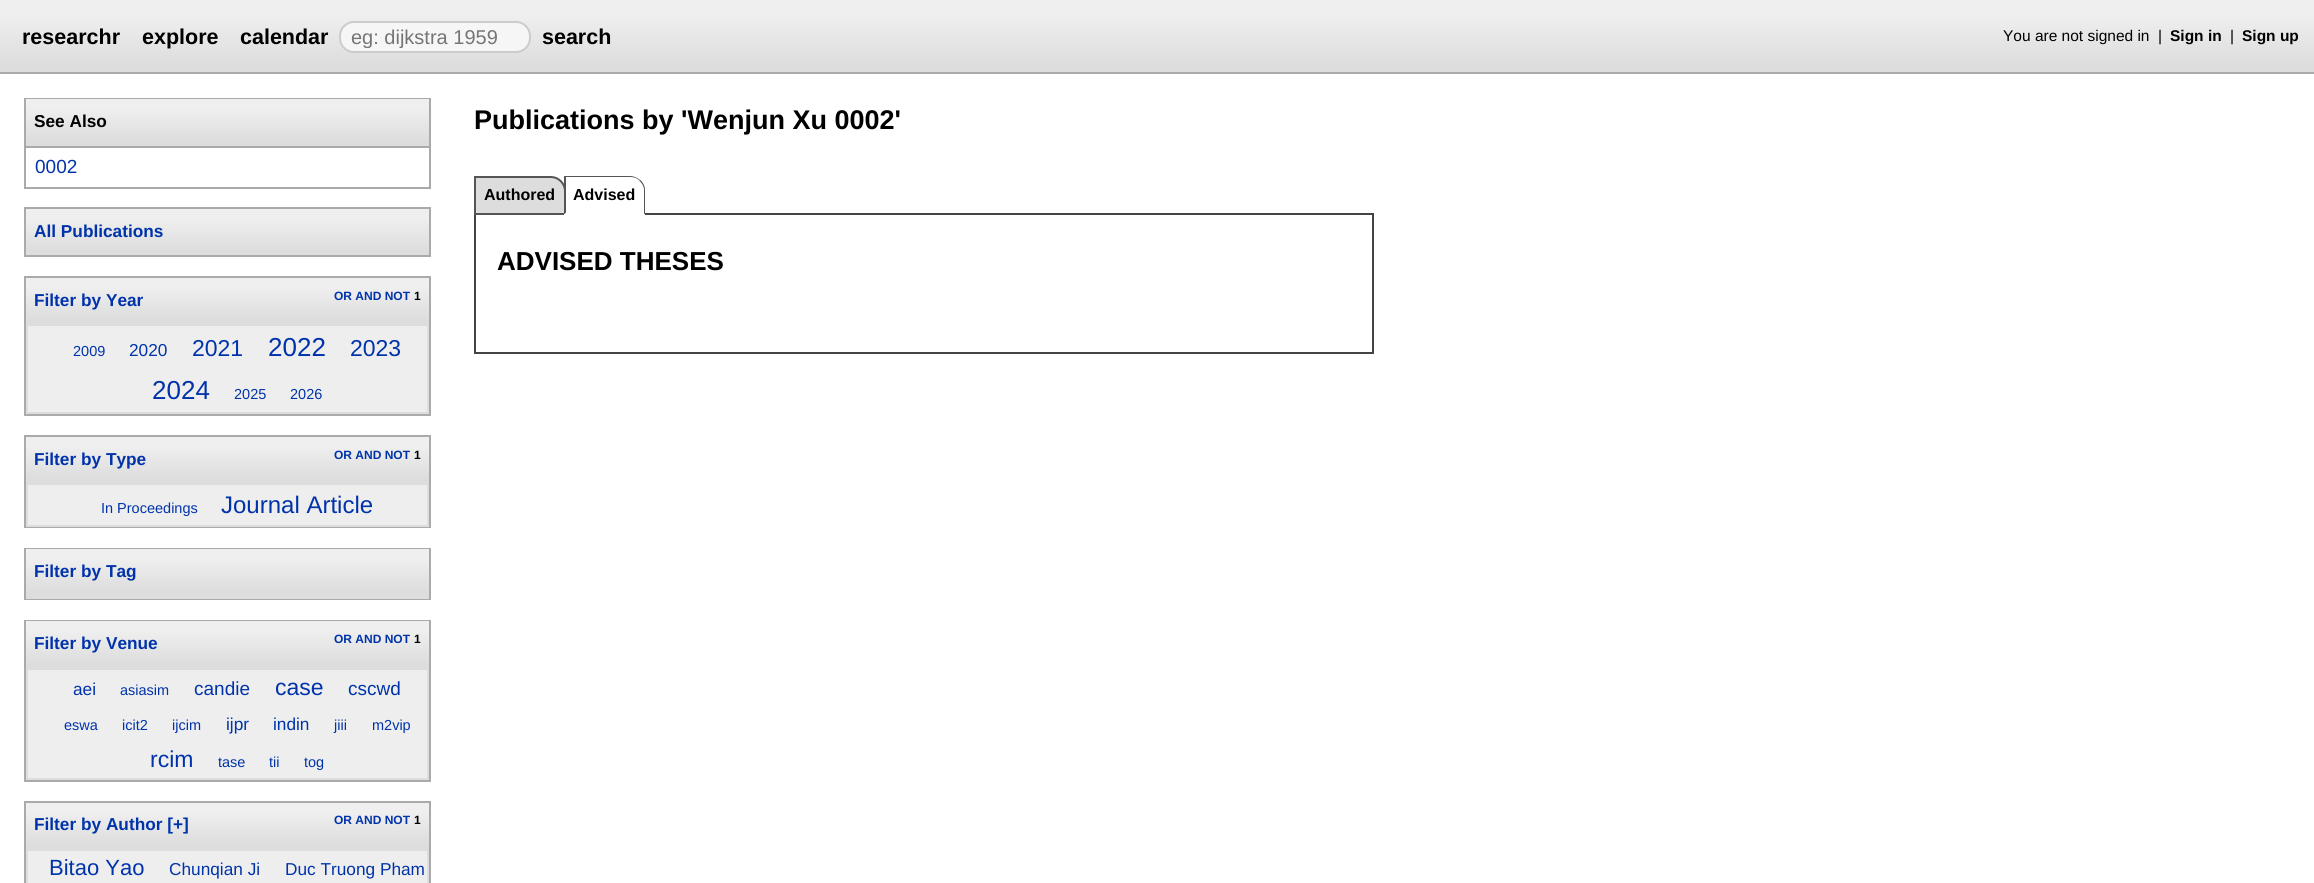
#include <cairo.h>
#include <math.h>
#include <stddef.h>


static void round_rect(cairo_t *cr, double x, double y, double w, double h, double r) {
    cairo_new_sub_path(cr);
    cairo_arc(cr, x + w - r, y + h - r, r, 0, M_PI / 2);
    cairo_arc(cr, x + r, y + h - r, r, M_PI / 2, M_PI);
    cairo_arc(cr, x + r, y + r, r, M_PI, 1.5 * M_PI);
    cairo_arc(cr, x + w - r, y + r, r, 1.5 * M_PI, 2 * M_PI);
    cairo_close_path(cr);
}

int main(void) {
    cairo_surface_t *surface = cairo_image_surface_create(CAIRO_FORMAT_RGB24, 2314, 883);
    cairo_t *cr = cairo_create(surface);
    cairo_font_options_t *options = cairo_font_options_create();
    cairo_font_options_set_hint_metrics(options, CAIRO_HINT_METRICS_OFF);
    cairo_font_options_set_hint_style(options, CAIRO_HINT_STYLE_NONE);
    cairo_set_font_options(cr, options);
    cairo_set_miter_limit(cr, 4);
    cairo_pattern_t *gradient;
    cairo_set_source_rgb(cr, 1, 1, 1);
    cairo_paint(cr);
    gradient = cairo_pattern_create_linear(0, 72, 0, 0);
    cairo_pattern_add_color_stop_rgba(gradient, 0.1, 0.867, 0.867, 0.867, 1);
    cairo_pattern_add_color_stop_rgba(gradient, 0.8, 0.937, 0.937, 0.937, 1);
    cairo_set_source(cr, gradient);
    cairo_pattern_destroy(gradient);
    cairo_rectangle(cr, 0, 0, 2314, 72);
    cairo_fill(cr);
    cairo_set_source_rgb(cr, 0.667, 0.667, 0.667);
    cairo_rectangle(cr, 0, 72, 2314, 2);
    cairo_fill(cr);
    cairo_select_font_face(cr, "Liberation Sans", CAIRO_FONT_SLANT_NORMAL, CAIRO_FONT_WEIGHT_BOLD);
    cairo_set_font_size(cr, 21.5);
    cairo_set_source_rgb(cr, 0, 0, 0);
    cairo_move_to(cr, 22, 44);
    cairo_show_text(cr, "researchr");
    cairo_move_to(cr, 142, 44);
    cairo_show_text(cr, "explore");
    cairo_move_to(cr, 240, 44);
    cairo_show_text(cr, "calendar");
    cairo_set_source_rgb(cr, 0.961, 0.961, 0.961);
    round_rect(cr, 340, 22, 190, 30, 14);
    cairo_fill_preserve(cr);
    cairo_set_source_rgb(cr, 0.8, 0.8, 0.8);
    cairo_stroke(cr);
    cairo_save(cr);
    cairo_rectangle(cr, 345, 26, 180, 22);
    cairo_clip(cr);
    cairo_select_font_face(cr, "Liberation Sans", CAIRO_FONT_SLANT_NORMAL, CAIRO_FONT_WEIGHT_NORMAL);
    cairo_set_font_size(cr, 20);
    cairo_set_source_rgb(cr, 0.459, 0.459, 0.459);
    cairo_move_to(cr, 351, 44);
    cairo_show_text(cr, "eg: dijkstra 1959");
    cairo_restore(cr);
    cairo_set_source_rgb(cr, 0, 0, 0);
    cairo_move_to(cr, 542, 44);
    cairo_show_text(cr, "search");
    cairo_select_font_face(cr, "Liberation Sans", CAIRO_FONT_SLANT_NORMAL, CAIRO_FONT_WEIGHT_NORMAL);
    cairo_set_font_size(cr, 15.5);
    cairo_move_to(cr, 2003, 41);
    cairo_show_text(cr, "You are not signed in");
    cairo_move_to(cr, 2158, 41);
    cairo_show_text(cr, "|");
    cairo_select_font_face(cr, "Liberation Sans", CAIRO_FONT_SLANT_NORMAL, CAIRO_FONT_WEIGHT_BOLD);
    cairo_move_to(cr, 2170, 41);
    cairo_show_text(cr, "Sign in");
    cairo_select_font_face(cr, "Liberation Sans", CAIRO_FONT_SLANT_NORMAL, CAIRO_FONT_WEIGHT_NORMAL);
    cairo_move_to(cr, 2230, 41);
    cairo_show_text(cr, "|");
    cairo_select_font_face(cr, "Liberation Sans", CAIRO_FONT_SLANT_NORMAL, CAIRO_FONT_WEIGHT_BOLD);
    cairo_move_to(cr, 2242, 41);
    cairo_show_text(cr, "Sign up");
    cairo_rectangle(cr, 25, 99, 405, 89);
    cairo_set_source_rgb(cr, 0.667, 0.667, 0.667);
    cairo_stroke(cr);
    gradient = cairo_pattern_create_linear(26, 146, 26, 99);
    cairo_pattern_add_color_stop_rgba(gradient, 0.1, 0.867, 0.867, 0.867, 1);
    cairo_pattern_add_color_stop_rgba(gradient, 0.8, 0.937, 0.937, 0.937, 1);
    cairo_set_source(cr, gradient);
    cairo_pattern_destroy(gradient);
    cairo_rectangle(cr, 26, 99, 403, 47);
    cairo_fill(cr);
    cairo_set_font_size(cr, 17.25);
    cairo_set_source_rgb(cr, 0, 0, 0);
    cairo_move_to(cr, 34, 127);
    cairo_show_text(cr, "See Also");
    cairo_set_source_rgb(cr, 0.667, 0.667, 0.667);
    cairo_rectangle(cr, 26, 146, 403, 2);
    cairo_fill(cr);
    cairo_select_font_face(cr, "Liberation Sans", CAIRO_FONT_SLANT_NORMAL, CAIRO_FONT_WEIGHT_NORMAL);
    cairo_set_font_size(cr, 19);
    cairo_set_source_rgb(cr, 0, 0.2, 0.667);
    cairo_move_to(cr, 35, 173);
    cairo_show_text(cr, "0002");
    cairo_rectangle(cr, 25, 208, 405, 48);
    cairo_set_source_rgb(cr, 0.667, 0.667, 0.667);
    cairo_stroke(cr);
    gradient = cairo_pattern_create_linear(26, 255, 26, 209);
    cairo_pattern_add_color_stop_rgba(gradient, 0.1, 0.867, 0.867, 0.867, 1);
    cairo_pattern_add_color_stop_rgba(gradient, 0.8, 0.937, 0.937, 0.937, 1);
    cairo_set_source(cr, gradient);
    cairo_pattern_destroy(gradient);
    cairo_rectangle(cr, 26, 209, 403, 46);
    cairo_fill(cr);
    cairo_select_font_face(cr, "Liberation Sans", CAIRO_FONT_SLANT_NORMAL, CAIRO_FONT_WEIGHT_BOLD);
    cairo_set_font_size(cr, 17.25);
    cairo_set_source_rgb(cr, 0, 0.2, 0.667);
    cairo_move_to(cr, 34, 237);
    cairo_show_text(cr, "All Publications");
    cairo_rectangle(cr, 25, 277, 405, 138);
    cairo_set_source_rgb(cr, 0.667, 0.667, 0.667);
    cairo_stroke(cr);
    gradient = cairo_pattern_create_linear(26, 324, 26, 278);
    cairo_pattern_add_color_stop_rgba(gradient, 0.1, 0.867, 0.867, 0.867, 1);
    cairo_pattern_add_color_stop_rgba(gradient, 0.8, 0.937, 0.937, 0.937, 1);
    cairo_set_source(cr, gradient);
    cairo_pattern_destroy(gradient);
    cairo_rectangle(cr, 26, 278, 403, 46);
    cairo_fill(cr);
    cairo_set_source_rgb(cr, 0, 0.2, 0.667);
    cairo_move_to(cr, 34, 306);
    cairo_show_text(cr, "Filter by Year");
    cairo_set_font_size(cr, 12);
    cairo_move_to(cr, 334, 300);
    cairo_show_text(cr, "OR AND NOT");
    cairo_set_source_rgb(cr, 0, 0, 0);
    cairo_move_to(cr, 414, 300);
    cairo_show_text(cr, "1");
    cairo_set_source_rgb(cr, 0.933, 0.933, 0.933);
    cairo_rectangle(cr, 27, 325, 401, 88);
    cairo_fill_preserve(cr);
    cairo_set_source_rgb(cr, 0.867, 0.867, 0.867);
    cairo_stroke(cr);
    cairo_select_font_face(cr, "Liberation Sans", CAIRO_FONT_SLANT_NORMAL, CAIRO_FONT_WEIGHT_NORMAL);
    cairo_set_font_size(cr, 14.5);
    cairo_set_source_rgb(cr, 0, 0.2, 0.667);
    cairo_move_to(cr, 73, 356);
    cairo_show_text(cr, "2009");
    cairo_set_font_size(cr, 17.25);
    cairo_move_to(cr, 129, 356);
    cairo_show_text(cr, "2020");
    cairo_set_font_size(cr, 23);
    cairo_move_to(cr, 192, 356);
    cairo_show_text(cr, "2021");
    cairo_set_font_size(cr, 26);
    cairo_move_to(cr, 268, 356);
    cairo_show_text(cr, "2022");
    cairo_set_font_size(cr, 23);
    cairo_move_to(cr, 350, 356);
    cairo_show_text(cr, "2023");
    cairo_set_font_size(cr, 26);
    cairo_move_to(cr, 152, 399);
    cairo_show_text(cr, "2024");
    cairo_set_font_size(cr, 14.5);
    cairo_move_to(cr, 234, 399);
    cairo_show_text(cr, "2025");
    cairo_move_to(cr, 290, 399);
    cairo_show_text(cr, "2026");
    cairo_rectangle(cr, 25, 436, 405, 91);
    cairo_set_source_rgb(cr, 0.667, 0.667, 0.667);
    cairo_stroke(cr);
    gradient = cairo_pattern_create_linear(26, 483, 26, 437);
    cairo_pattern_add_color_stop_rgba(gradient, 0.1, 0.867, 0.867, 0.867, 1);
    cairo_pattern_add_color_stop_rgba(gradient, 0.8, 0.937, 0.937, 0.937, 1);
    cairo_set_source(cr, gradient);
    cairo_pattern_destroy(gradient);
    cairo_rectangle(cr, 26, 437, 403, 46);
    cairo_fill(cr);
    cairo_select_font_face(cr, "Liberation Sans", CAIRO_FONT_SLANT_NORMAL, CAIRO_FONT_WEIGHT_BOLD);
    cairo_set_font_size(cr, 17.25);
    cairo_set_source_rgb(cr, 0, 0.2, 0.667);
    cairo_move_to(cr, 34, 465);
    cairo_show_text(cr, "Filter by Type");
    cairo_set_font_size(cr, 12);
    cairo_move_to(cr, 334, 459);
    cairo_show_text(cr, "OR AND NOT");
    cairo_set_source_rgb(cr, 0, 0, 0);
    cairo_move_to(cr, 414, 459);
    cairo_show_text(cr, "1");
    cairo_set_source_rgb(cr, 0.933, 0.933, 0.933);
    cairo_rectangle(cr, 27, 484, 401, 42);
    cairo_fill_preserve(cr);
    cairo_set_source_rgb(cr, 0.867, 0.867, 0.867);
    cairo_stroke(cr);
    cairo_select_font_face(cr, "Liberation Sans", CAIRO_FONT_SLANT_NORMAL, CAIRO_FONT_WEIGHT_NORMAL);
    cairo_set_font_size(cr, 14.5);
    cairo_set_source_rgb(cr, 0, 0.2, 0.667);
    cairo_move_to(cr, 101, 513);
    cairo_show_text(cr, "In Proceedings");
    cairo_set_font_size(cr, 24);
    cairo_move_to(cr, 221, 513);
    cairo_show_text(cr, "Journal Article");
    cairo_rectangle(cr, 25, 549, 405, 50);
    cairo_set_source_rgb(cr, 0.667, 0.667, 0.667);
    cairo_stroke(cr);
    gradient = cairo_pattern_create_linear(26, 596, 26, 549);
    cairo_pattern_add_color_stop_rgba(gradient, 0.1, 0.867, 0.867, 0.867, 1);
    cairo_pattern_add_color_stop_rgba(gradient, 0.8, 0.937, 0.937, 0.937, 1);
    cairo_set_source(cr, gradient);
    cairo_pattern_destroy(gradient);
    cairo_rectangle(cr, 26, 549, 403, 47);
    cairo_fill(cr);
    cairo_select_font_face(cr, "Liberation Sans", CAIRO_FONT_SLANT_NORMAL, CAIRO_FONT_WEIGHT_BOLD);
    cairo_set_font_size(cr, 17.25);
    cairo_set_source_rgb(cr, 0, 0.2, 0.667);
    cairo_move_to(cr, 34, 577);
    cairo_show_text(cr, "Filter by Tag");
    cairo_set_source_rgb(cr, 0.867, 0.867, 0.867);
    cairo_rectangle(cr, 26, 596, 403, 3);
    cairo_fill(cr);
    cairo_rectangle(cr, 25, 621, 405, 160);
    cairo_set_source_rgb(cr, 0.667, 0.667, 0.667);
    cairo_stroke(cr);
    gradient = cairo_pattern_create_linear(26, 668, 26, 621);
    cairo_pattern_add_color_stop_rgba(gradient, 0.1, 0.867, 0.867, 0.867, 1);
    cairo_pattern_add_color_stop_rgba(gradient, 0.8, 0.937, 0.937, 0.937, 1);
    cairo_set_source(cr, gradient);
    cairo_pattern_destroy(gradient);
    cairo_rectangle(cr, 26, 621, 403, 47);
    cairo_fill(cr);
    cairo_set_source_rgb(cr, 0, 0.2, 0.667);
    cairo_move_to(cr, 34, 649);
    cairo_show_text(cr, "Filter by Venue");
    cairo_set_font_size(cr, 12);
    cairo_move_to(cr, 334, 643);
    cairo_show_text(cr, "OR AND NOT");
    cairo_set_source_rgb(cr, 0, 0, 0);
    cairo_move_to(cr, 414, 643);
    cairo_show_text(cr, "1");
    cairo_set_source_rgb(cr, 0.933, 0.933, 0.933);
    cairo_rectangle(cr, 27, 669, 401, 110);
    cairo_fill_preserve(cr);
    cairo_set_source_rgb(cr, 0.867, 0.867, 0.867);
    cairo_stroke(cr);
    cairo_select_font_face(cr, "Liberation Sans", CAIRO_FONT_SLANT_NORMAL, CAIRO_FONT_WEIGHT_NORMAL);
    cairo_set_font_size(cr, 17.25);
    cairo_set_source_rgb(cr, 0, 0.2, 0.667);
    cairo_move_to(cr, 73, 695);
    cairo_show_text(cr, "aei");
    cairo_set_font_size(cr, 14.5);
    cairo_move_to(cr, 120, 695);
    cairo_show_text(cr, "asiasim");
    cairo_set_font_size(cr, 19);
    cairo_move_to(cr, 194, 695);
    cairo_show_text(cr, "candie");
    cairo_set_font_size(cr, 23);
    cairo_move_to(cr, 275, 695);
    cairo_show_text(cr, "case");
    cairo_set_font_size(cr, 19);
    cairo_move_to(cr, 348, 695);
    cairo_show_text(cr, "cscwd");
    cairo_set_font_size(cr, 14.5);
    cairo_move_to(cr, 64, 730);
    cairo_show_text(cr, "eswa");
    cairo_move_to(cr, 122, 730);
    cairo_show_text(cr, "icit2");
    cairo_move_to(cr, 172, 730);
    cairo_show_text(cr, "ijcim");
    cairo_set_font_size(cr, 17.25);
    cairo_move_to(cr, 226, 730);
    cairo_show_text(cr, "ijpr");
    cairo_move_to(cr, 273, 730);
    cairo_show_text(cr, "indin");
    cairo_set_font_size(cr, 14.5);
    cairo_move_to(cr, 334, 730);
    cairo_show_text(cr, "jiii");
    cairo_move_to(cr, 372, 730);
    cairo_show_text(cr, "m2vip");
    cairo_set_font_size(cr, 23);
    cairo_move_to(cr, 150, 767);
    cairo_show_text(cr, "rcim");
    cairo_set_font_size(cr, 14.5);
    cairo_move_to(cr, 218, 767);
    cairo_show_text(cr, "tase");
    cairo_move_to(cr, 269, 767);
    cairo_show_text(cr, "tii");
    cairo_move_to(cr, 304, 767);
    cairo_show_text(cr, "tog");
    cairo_rectangle(cr, 25, 802, 405, 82);
    cairo_set_source_rgb(cr, 0.667, 0.667, 0.667);
    cairo_stroke(cr);
    gradient = cairo_pattern_create_linear(26, 849, 26, 803);
    cairo_pattern_add_color_stop_rgba(gradient, 0.1, 0.867, 0.867, 0.867, 1);
    cairo_pattern_add_color_stop_rgba(gradient, 0.8, 0.937, 0.937, 0.937, 1);
    cairo_set_source(cr, gradient);
    cairo_pattern_destroy(gradient);
    cairo_rectangle(cr, 26, 803, 403, 46);
    cairo_fill(cr);
    cairo_select_font_face(cr, "Liberation Sans", CAIRO_FONT_SLANT_NORMAL, CAIRO_FONT_WEIGHT_BOLD);
    cairo_set_font_size(cr, 17.25);
    cairo_set_source_rgb(cr, 0, 0.2, 0.667);
    cairo_move_to(cr, 34, 830);
    cairo_show_text(cr, "Filter by Author [+]");
    cairo_set_font_size(cr, 12);
    cairo_move_to(cr, 334, 824);
    cairo_show_text(cr, "OR AND NOT");
    cairo_set_source_rgb(cr, 0, 0, 0);
    cairo_move_to(cr, 414, 824);
    cairo_show_text(cr, "1");
    cairo_set_source_rgb(cr, 0.933, 0.933, 0.933);
    cairo_rectangle(cr, 27, 850, 401, 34);
    cairo_fill_preserve(cr);
    cairo_set_source_rgb(cr, 0.867, 0.867, 0.867);
    cairo_stroke(cr);
    cairo_select_font_face(cr, "Liberation Sans", CAIRO_FONT_SLANT_NORMAL, CAIRO_FONT_WEIGHT_NORMAL);
    cairo_set_font_size(cr, 22);
    cairo_set_source_rgb(cr, 0, 0.2, 0.667);
    cairo_move_to(cr, 49, 875);
    cairo_show_text(cr, "Bitao Yao");
    cairo_set_font_size(cr, 17.25);
    cairo_move_to(cr, 169, 875);
    cairo_show_text(cr, "Chunqian Ji");
    cairo_move_to(cr, 285, 875);
    cairo_show_text(cr, "Duc Truong Pham");
    cairo_select_font_face(cr, "Liberation Sans", CAIRO_FONT_SLANT_NORMAL, CAIRO_FONT_WEIGHT_BOLD);
    cairo_set_font_size(cr, 27);
    cairo_set_source_rgb(cr, 0, 0, 0);
    cairo_move_to(cr, 474, 129);
    cairo_show_text(cr, "Publications by 'Wenjun Xu 0002'");
    cairo_rectangle(cr, 475, 214, 898, 139);
    cairo_set_source_rgb(cr, 0.267, 0.267, 0.267);
    cairo_stroke(cr);
    cairo_set_source_rgb(cr, 0.867, 0.867, 0.867);
    cairo_new_path(cr);
    cairo_move_to(cr, 475, 177);
    cairo_line_to(cr, 551, 177);
    cairo_curve_to(cr, 558.5, 177, 565, 183.5, 565, 191);
    cairo_line_to(cr, 565, 214);
    cairo_line_to(cr, 475, 214);
    cairo_close_path(cr);
    cairo_fill_preserve(cr);
    cairo_set_source_rgb(cr, 0.333, 0.333, 0.333);
    cairo_stroke(cr);
    cairo_set_font_size(cr, 16);
    cairo_set_source_rgb(cr, 0, 0, 0);
    cairo_move_to(cr, 484, 200);
    cairo_show_text(cr, "Authored");
    cairo_set_source_rgb(cr, 1, 1, 1);
    cairo_new_path(cr);
    cairo_move_to(cr, 564, 176);
    cairo_line_to(cr, 630, 176);
    cairo_curve_to(cr, 638.5, 176, 645, 182.5, 645, 191);
    cairo_line_to(cr, 645, 215);
    cairo_line_to(cr, 564, 215);
    cairo_close_path(cr);
    cairo_fill(cr);
    cairo_set_source_rgb(cr, 0.333, 0.333, 0.333);
    cairo_new_path(cr);
    cairo_move_to(cr, 566, 177);
    cairo_line_to(cr, 630, 177);
    cairo_curve_to(cr, 634, 177, 637, 178, 640, 181);
    cairo_line_to(cr, 640, 180);
    cairo_curve_to(cr, 638, 178, 634, 176, 630, 176);
    cairo_line_to(cr, 564, 176);
    cairo_line_to(cr, 566, 178);
    cairo_close_path(cr);
    cairo_fill(cr);
    cairo_new_path(cr);
    cairo_move_to(cr, 640.5, 180);
    cairo_curve_to(cr, 643, 182.5, 645, 186, 645, 190);
    cairo_line_to(cr, 645, 214);
    cairo_line_to(cr, 644.5, 214);
    cairo_line_to(cr, 643.5, 213);
    cairo_line_to(cr, 644, 213);
    cairo_line_to(cr, 644, 190);
    cairo_curve_to(cr, 644, 186.5, 642, 183, 639.5, 181);
    cairo_close_path(cr);
    cairo_fill(cr);
    cairo_set_source_rgb(cr, 1, 1, 1);
    cairo_new_path(cr);
    cairo_move_to(cr, 644, 214);
    cairo_line_to(cr, 564, 214);
    cairo_line_to(cr, 566, 212);
    cairo_line_to(cr, 566, 213);
    cairo_line_to(cr, 644, 213);
    cairo_close_path(cr);
    cairo_fill(cr);
    cairo_set_source_rgb(cr, 0.333, 0.333, 0.333);
    cairo_new_path(cr);
    cairo_move_to(cr, 564, 176);
    cairo_line_to(cr, 564.5, 176);
    cairo_line_to(cr, 566, 177.5);
    cairo_line_to(cr, 566, 212.5);
    cairo_line_to(cr, 564.5, 214);
    cairo_line_to(cr, 564, 214);
    cairo_close_path(cr);
    cairo_fill(cr);
    cairo_set_source_rgb(cr, 0, 0, 0);
    cairo_move_to(cr, 573, 200);
    cairo_show_text(cr, "Advised");
    cairo_set_font_size(cr, 26);
    cairo_move_to(cr, 497, 270);
    cairo_show_text(cr, "ADVISED THESES");
    cairo_surface_write_to_png(surface, "page.png");
    cairo_font_options_destroy(options);
    cairo_destroy(cr);
    cairo_surface_destroy(surface);
    return 0;
}
